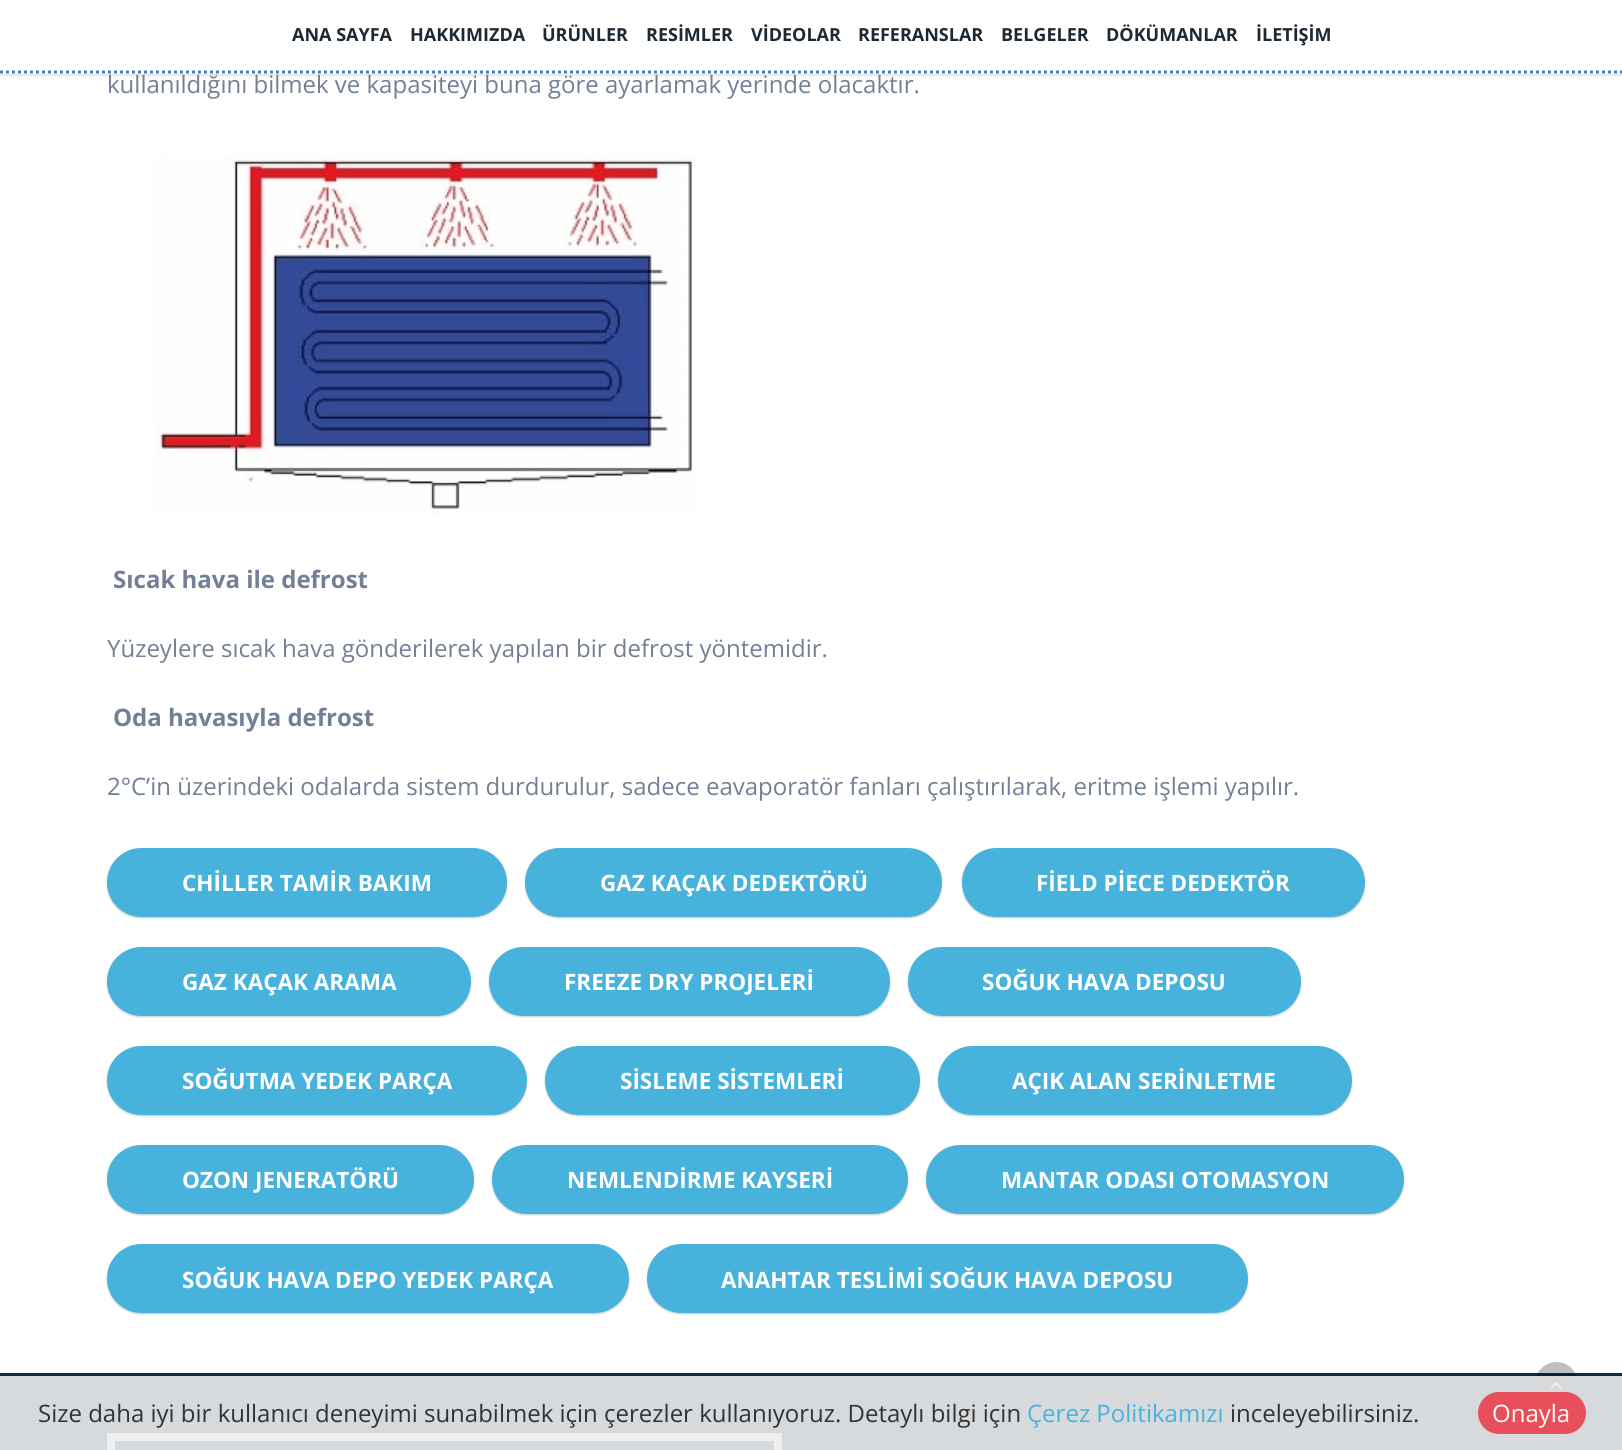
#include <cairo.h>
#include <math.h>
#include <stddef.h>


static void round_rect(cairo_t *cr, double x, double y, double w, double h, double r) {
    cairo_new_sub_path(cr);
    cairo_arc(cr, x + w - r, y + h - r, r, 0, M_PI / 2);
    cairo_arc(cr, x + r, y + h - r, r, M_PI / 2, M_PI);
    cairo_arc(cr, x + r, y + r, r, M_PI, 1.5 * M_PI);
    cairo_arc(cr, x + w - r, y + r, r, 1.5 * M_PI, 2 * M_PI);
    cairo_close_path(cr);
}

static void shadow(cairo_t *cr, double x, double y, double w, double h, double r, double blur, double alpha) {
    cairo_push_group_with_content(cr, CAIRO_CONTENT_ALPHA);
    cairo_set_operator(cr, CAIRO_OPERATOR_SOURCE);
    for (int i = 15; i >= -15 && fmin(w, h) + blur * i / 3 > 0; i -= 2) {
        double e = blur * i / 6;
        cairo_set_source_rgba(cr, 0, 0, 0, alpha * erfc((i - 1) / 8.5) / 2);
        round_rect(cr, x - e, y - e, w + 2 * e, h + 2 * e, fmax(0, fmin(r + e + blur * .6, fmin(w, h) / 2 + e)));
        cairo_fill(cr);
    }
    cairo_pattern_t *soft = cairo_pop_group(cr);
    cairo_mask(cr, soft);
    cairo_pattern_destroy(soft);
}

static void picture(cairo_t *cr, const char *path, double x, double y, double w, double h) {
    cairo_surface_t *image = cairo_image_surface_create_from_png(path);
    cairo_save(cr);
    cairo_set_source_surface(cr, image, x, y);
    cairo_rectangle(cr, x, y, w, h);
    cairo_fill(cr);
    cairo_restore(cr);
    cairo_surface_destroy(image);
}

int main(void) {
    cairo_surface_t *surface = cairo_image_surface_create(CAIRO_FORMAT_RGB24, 1622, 1450);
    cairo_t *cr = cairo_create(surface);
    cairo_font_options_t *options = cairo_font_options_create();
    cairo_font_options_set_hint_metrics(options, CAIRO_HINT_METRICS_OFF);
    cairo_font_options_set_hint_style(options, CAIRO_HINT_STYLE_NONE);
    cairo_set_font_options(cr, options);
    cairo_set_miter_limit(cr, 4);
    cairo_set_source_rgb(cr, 1, 1, 1);
    cairo_paint(cr);
    cairo_set_source_rgb(cr, 0, 0, 0);
    shadow(cr, 0, 2, 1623, 73, 0, 2, 0.16);
    cairo_set_source_rgb(cr, 1, 1, 1);
    cairo_rectangle(cr, 0, 0, 1622, 74);
    cairo_fill(cr);
    cairo_new_path(cr);
    cairo_move_to(cr, 0, 72);
    cairo_line_to(cr, 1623, 72);
    cairo_set_source_rgb(cr, 0.239, 0.502, 0.773);
    cairo_set_line_width(cr, 3);
    cairo_set_dash(cr, (double[]){3, 3}, 2, 0);
    cairo_stroke(cr);
    cairo_select_font_face(cr, "Open Sans", CAIRO_FONT_SLANT_NORMAL, CAIRO_FONT_WEIGHT_BOLD);
    cairo_set_font_size(cr, 18);
    cairo_set_source_rgb(cr, 0.11, 0.157, 0.2);
    cairo_move_to(cr, 292, 41);
    cairo_show_text(cr, "ANA SAYFA");
    cairo_move_to(cr, 410, 41);
    cairo_show_text(cr, "HAKKIMIZDA");
    cairo_move_to(cr, 542, 41);
    cairo_show_text(cr, "ÜRÜNLER");
    cairo_move_to(cr, 646, 41);
    cairo_show_text(cr, "RESİMLER");
    cairo_move_to(cr, 751, 41);
    cairo_show_text(cr, "VİDEOLAR");
    cairo_move_to(cr, 858, 41);
    cairo_show_text(cr, "REFERANSLAR");
    cairo_move_to(cr, 1001, 41);
    cairo_show_text(cr, "BELGELER");
    cairo_move_to(cr, 1106, 41);
    cairo_show_text(cr, "DÖKÜMANLAR");
    cairo_move_to(cr, 1256, 41);
    cairo_show_text(cr, "İLETİŞİM");
    cairo_select_font_face(cr, "Open Sans", CAIRO_FONT_SLANT_NORMAL, CAIRO_FONT_WEIGHT_NORMAL);
    cairo_set_font_size(cr, 24);
    cairo_set_source_rgb(cr, 0.443, 0.502, 0.592);
    cairo_move_to(cr, 107, 93);
    cairo_show_text(cr, "kullanıldığını bilmek ve kapasiteyi buna göre ayarlamak yerinde olacaktır.");
    picture(cr, "img1.png", 155, 154, 540, 360);
    cairo_select_font_face(cr, "Open Sans", CAIRO_FONT_SLANT_NORMAL, CAIRO_FONT_WEIGHT_BOLD);
    cairo_move_to(cr, 113, 588);
    cairo_show_text(cr, "Sıcak hava ile defrost");
    cairo_select_font_face(cr, "Open Sans", CAIRO_FONT_SLANT_NORMAL, CAIRO_FONT_WEIGHT_NORMAL);
    cairo_move_to(cr, 107, 657);
    cairo_show_text(cr, "Yüzeylere sıcak hava gönderilerek yapılan bir defrost yöntemidir.");
    cairo_select_font_face(cr, "Open Sans", CAIRO_FONT_SLANT_NORMAL, CAIRO_FONT_WEIGHT_BOLD);
    cairo_move_to(cr, 113, 726);
    cairo_show_text(cr, "Oda havasıyla defrost");
    cairo_select_font_face(cr, "Open Sans", CAIRO_FONT_SLANT_NORMAL, CAIRO_FONT_WEIGHT_NORMAL);
    cairo_move_to(cr, 107, 795);
    cairo_show_text(cr, "2°C’in üzerindeki odalarda sistem durdurulur, sadece eavaporatör fanları çalıştırılarak, eritme işlemi yapılır.");
    cairo_set_source_rgb(cr, 0, 0, 0);
    shadow(cr, 107, 849, 400, 69, 34.5, 1, 0.21);
    cairo_set_source_rgb(cr, 0.278, 0.702, 0.867);
    round_rect(cr, 107, 848, 400, 69, 34.5);
    cairo_fill(cr);
    cairo_select_font_face(cr, "Open Sans", CAIRO_FONT_SLANT_NORMAL, CAIRO_FONT_WEIGHT_BOLD);
    cairo_set_font_size(cr, 22.5);
    cairo_set_source_rgb(cr, 1, 1, 1);
    cairo_move_to(cr, 182, 891);
    cairo_show_text(cr, "CHİLLER TAMİR BAKIM");
    cairo_set_source_rgb(cr, 0, 0, 0);
    shadow(cr, 525, 849, 417, 69, 34.5, 1, 0.21);
    cairo_set_source_rgb(cr, 0.278, 0.702, 0.867);
    round_rect(cr, 525, 848, 417, 69, 34.5);
    cairo_fill(cr);
    cairo_set_source_rgb(cr, 1, 1, 1);
    cairo_move_to(cr, 600, 891);
    cairo_show_text(cr, "GAZ KAÇAK DEDEKTÖRÜ");
    cairo_set_source_rgb(cr, 0, 0, 0);
    shadow(cr, 962, 849, 403, 69, 34.5, 1, 0.21);
    cairo_set_source_rgb(cr, 0.278, 0.702, 0.867);
    round_rect(cr, 962, 848, 403, 69, 34.5);
    cairo_fill(cr);
    cairo_set_source_rgb(cr, 1, 1, 1);
    cairo_move_to(cr, 1036, 891);
    cairo_show_text(cr, "FİELD PİECE DEDEKTÖR");
    cairo_set_source_rgb(cr, 0, 0, 0);
    shadow(cr, 107, 948, 364, 69, 34.5, 1, 0.21);
    cairo_set_source_rgb(cr, 0.278, 0.702, 0.867);
    round_rect(cr, 107, 947, 364, 69, 34.5);
    cairo_fill(cr);
    cairo_set_source_rgb(cr, 1, 1, 1);
    cairo_move_to(cr, 182, 990);
    cairo_show_text(cr, "GAZ KAÇAK ARAMA");
    cairo_set_source_rgb(cr, 0, 0, 0);
    shadow(cr, 489, 948, 401, 69, 34.5, 1, 0.21);
    cairo_set_source_rgb(cr, 0.278, 0.702, 0.867);
    round_rect(cr, 489, 947, 401, 69, 34.5);
    cairo_fill(cr);
    cairo_set_source_rgb(cr, 1, 1, 1);
    cairo_move_to(cr, 564, 990);
    cairo_show_text(cr, "FREEZE DRY PROJELERİ");
    cairo_set_source_rgb(cr, 0, 0, 0);
    shadow(cr, 908, 948, 393, 69, 34.5, 1, 0.21);
    cairo_set_source_rgb(cr, 0.278, 0.702, 0.867);
    round_rect(cr, 908, 947, 393, 69, 34.5);
    cairo_fill(cr);
    cairo_set_source_rgb(cr, 1, 1, 1);
    cairo_move_to(cr, 982, 990);
    cairo_show_text(cr, "SOĞUK HAVA DEPOSU");
    cairo_set_source_rgb(cr, 0, 0, 0);
    shadow(cr, 107, 1047, 420, 69, 34.5, 1, 0.21);
    cairo_set_source_rgb(cr, 0.278, 0.702, 0.867);
    round_rect(cr, 107, 1046, 420, 69, 34.5);
    cairo_fill(cr);
    cairo_set_source_rgb(cr, 1, 1, 1);
    cairo_move_to(cr, 182, 1089);
    cairo_show_text(cr, "SOĞUTMA YEDEK PARÇA");
    cairo_set_source_rgb(cr, 0, 0, 0);
    shadow(cr, 545, 1047, 375, 69, 34.5, 1, 0.21);
    cairo_set_source_rgb(cr, 0.278, 0.702, 0.867);
    round_rect(cr, 545, 1046, 375, 69, 34.5);
    cairo_fill(cr);
    cairo_set_source_rgb(cr, 1, 1, 1);
    cairo_move_to(cr, 620, 1089);
    cairo_show_text(cr, "SİSLEME SİSTEMLERİ");
    cairo_set_source_rgb(cr, 0, 0, 0);
    shadow(cr, 938, 1047, 414, 69, 34.5, 1, 0.21);
    cairo_set_source_rgb(cr, 0.278, 0.702, 0.867);
    round_rect(cr, 938, 1046, 414, 69, 34.5);
    cairo_fill(cr);
    cairo_set_source_rgb(cr, 1, 1, 1);
    cairo_move_to(cr, 1012, 1089);
    cairo_show_text(cr, "AÇIK ALAN SERİNLETME");
    cairo_set_source_rgb(cr, 0, 0, 0);
    shadow(cr, 107, 1146, 367, 69, 34.5, 1, 0.21);
    cairo_set_source_rgb(cr, 0.278, 0.702, 0.867);
    round_rect(cr, 107, 1145, 367, 69, 34.5);
    cairo_fill(cr);
    cairo_set_source_rgb(cr, 1, 1, 1);
    cairo_move_to(cr, 182, 1188);
    cairo_show_text(cr, "OZON JENERATÖRÜ");
    cairo_set_source_rgb(cr, 0, 0, 0);
    shadow(cr, 492, 1146, 416, 69, 34.5, 1, 0.21);
    cairo_set_source_rgb(cr, 0.278, 0.702, 0.867);
    round_rect(cr, 492, 1145, 416, 69, 34.5);
    cairo_fill(cr);
    cairo_set_source_rgb(cr, 1, 1, 1);
    cairo_move_to(cr, 567, 1188);
    cairo_show_text(cr, "NEMLENDİRME KAYSERİ");
    cairo_set_source_rgb(cr, 0, 0, 0);
    shadow(cr, 926, 1146, 478, 69, 34.5, 1, 0.21);
    cairo_set_source_rgb(cr, 0.278, 0.702, 0.867);
    round_rect(cr, 926, 1145, 478, 69, 34.5);
    cairo_fill(cr);
    cairo_set_source_rgb(cr, 1, 1, 1);
    cairo_move_to(cr, 1001, 1188);
    cairo_show_text(cr, "MANTAR ODASI OTOMASYON");
    cairo_set_source_rgb(cr, 0, 0, 0);
    shadow(cr, 107, 1245, 522, 69, 34.5, 1, 0.21);
    cairo_set_source_rgb(cr, 0.278, 0.702, 0.867);
    round_rect(cr, 107, 1244, 522, 69, 34.5);
    cairo_fill(cr);
    cairo_set_source_rgb(cr, 1, 1, 1);
    cairo_move_to(cr, 182, 1288);
    cairo_show_text(cr, "SOĞUK HAVA DEPO YEDEK PARÇA");
    cairo_set_source_rgb(cr, 0, 0, 0);
    shadow(cr, 647, 1245, 601, 69, 34.5, 1, 0.21);
    cairo_set_source_rgb(cr, 0.278, 0.702, 0.867);
    round_rect(cr, 647, 1244, 601, 69, 34.5);
    cairo_fill(cr);
    cairo_set_source_rgb(cr, 1, 1, 1);
    cairo_move_to(cr, 721, 1288);
    cairo_show_text(cr, "ANAHTAR TESLİMİ SOĞUK HAVA DEPOSU");
    cairo_set_source_rgb(cr, 0.055, 0.169, 0.286);
    cairo_rectangle(cr, 0, 1373, 1622, 77);
    cairo_fill(cr);
    cairo_set_source_rgba(cr, 0, 0, 0, 0.25);
    round_rect(cr, 1535, 1362, 43, 44, 21.5);
    cairo_fill(cr);
    picture(cr, "img2.png", 1550, 1382, 12, 7);
    cairo_save(cr);
    cairo_set_fill_rule(cr, CAIRO_FILL_RULE_EVEN_ODD);
    cairo_new_path(cr);
    cairo_move_to(cr, 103, 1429);
    cairo_line_to(cr, 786, 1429);
    cairo_line_to(cr, 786, 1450);
    cairo_line_to(cr, 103, 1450);
    cairo_close_path(cr);
    cairo_move_to(cr, 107, 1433);
    cairo_line_to(cr, 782, 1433);
    cairo_line_to(cr, 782, 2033);
    cairo_line_to(cr, 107, 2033);
    cairo_close_path(cr);
    cairo_clip(cr);
    cairo_set_source_rgb(cr, 0, 0, 0);
    shadow(cr, 107, 1433, 675, 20, 0, 1, 0.4);
    cairo_restore(cr);
    cairo_rectangle(cr, 111, 1437, 667, 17);
    cairo_set_source_rgb(cr, 1, 1, 1);
    cairo_set_line_width(cr, 8);
    cairo_set_dash(cr, NULL, 0, 0);
    cairo_stroke(cr);
    cairo_set_source_rgba(cr, 0.933, 0.933, 0.933, 0.9);
    cairo_rectangle(cr, 0, 1376, 1622, 74);
    cairo_fill(cr);
    cairo_select_font_face(cr, "Open Sans", CAIRO_FONT_SLANT_NORMAL, CAIRO_FONT_WEIGHT_NORMAL);
    cairo_set_font_size(cr, 24);
    cairo_set_source_rgb(cr, 0.2, 0.2, 0.2);
    cairo_move_to(cr, 38, 1422);
    cairo_show_text(cr, "Size daha iyi bir kullanıcı deneyimi sunabilmek için çerezler kullanıyoruz. Detaylı bilgi için");
    cairo_set_source_rgb(cr, 0.278, 0.702, 0.867);
    cairo_move_to(cr, 1027, 1422);
    cairo_show_text(cr, "Çerez Politikamızı");
    cairo_set_source_rgb(cr, 0.2, 0.2, 0.2);
    cairo_move_to(cr, 1230, 1422);
    cairo_show_text(cr, "inceleyebilirsiniz.");
    cairo_set_source_rgb(cr, 0.906, 0.314, 0.353);
    round_rect(cr, 1478, 1392, 108, 42, 21);
    cairo_fill(cr);
    cairo_set_source_rgb(cr, 1, 1, 1);
    cairo_move_to(cr, 1492, 1422);
    cairo_show_text(cr, "Onayla");
    cairo_surface_write_to_png(surface, "page.png");
    cairo_font_options_destroy(options);
    cairo_destroy(cr);
    cairo_surface_destroy(surface);
    return 0;
}
